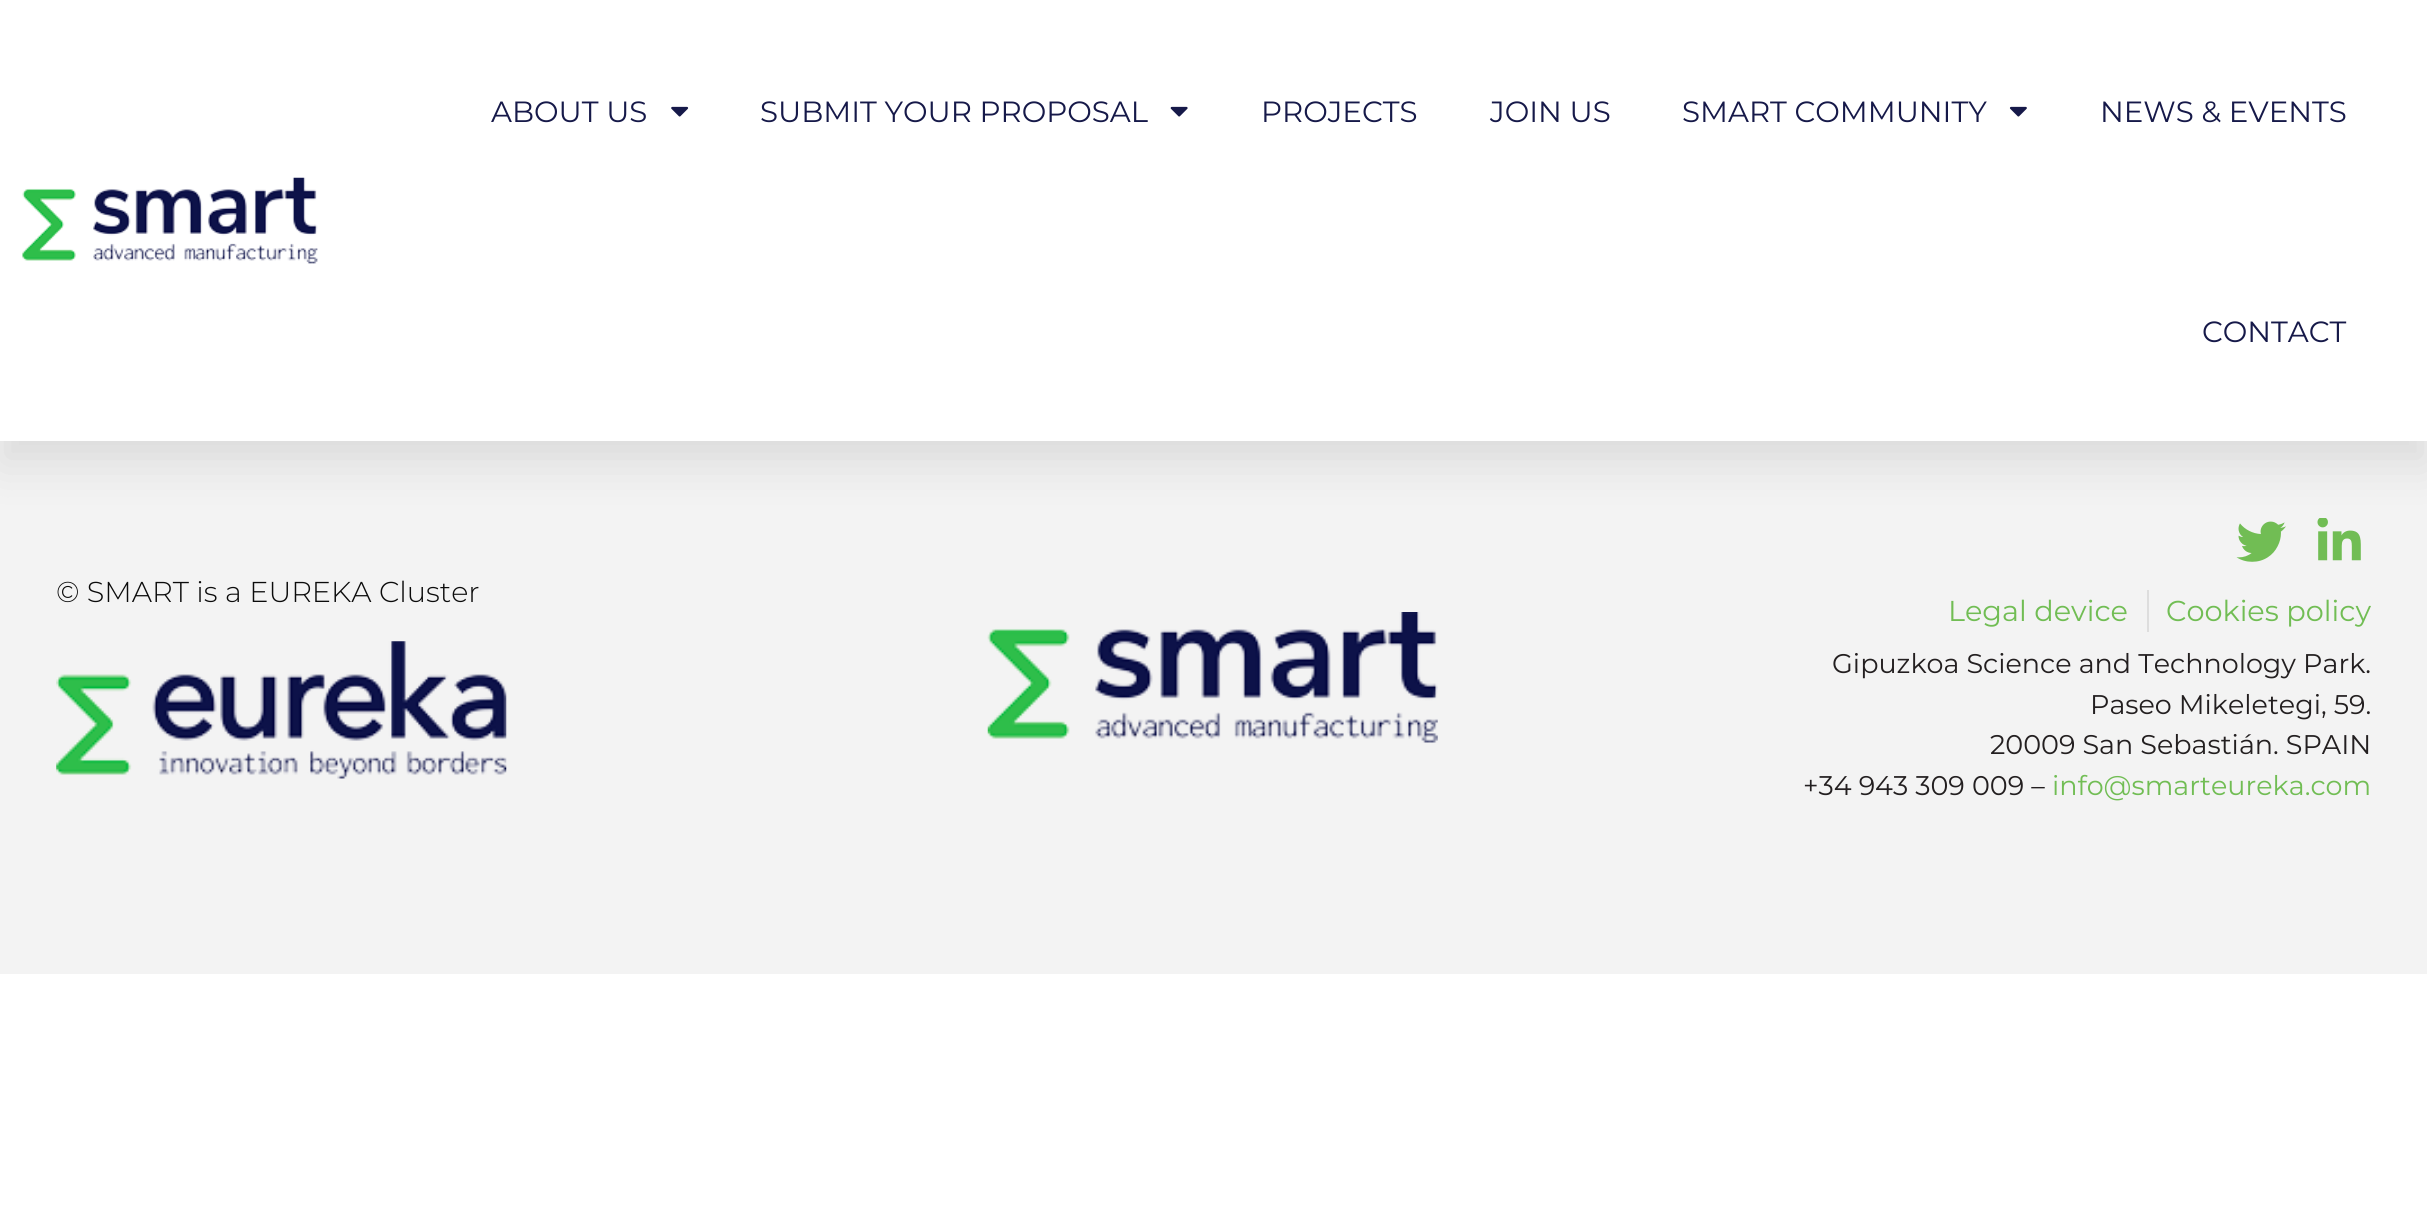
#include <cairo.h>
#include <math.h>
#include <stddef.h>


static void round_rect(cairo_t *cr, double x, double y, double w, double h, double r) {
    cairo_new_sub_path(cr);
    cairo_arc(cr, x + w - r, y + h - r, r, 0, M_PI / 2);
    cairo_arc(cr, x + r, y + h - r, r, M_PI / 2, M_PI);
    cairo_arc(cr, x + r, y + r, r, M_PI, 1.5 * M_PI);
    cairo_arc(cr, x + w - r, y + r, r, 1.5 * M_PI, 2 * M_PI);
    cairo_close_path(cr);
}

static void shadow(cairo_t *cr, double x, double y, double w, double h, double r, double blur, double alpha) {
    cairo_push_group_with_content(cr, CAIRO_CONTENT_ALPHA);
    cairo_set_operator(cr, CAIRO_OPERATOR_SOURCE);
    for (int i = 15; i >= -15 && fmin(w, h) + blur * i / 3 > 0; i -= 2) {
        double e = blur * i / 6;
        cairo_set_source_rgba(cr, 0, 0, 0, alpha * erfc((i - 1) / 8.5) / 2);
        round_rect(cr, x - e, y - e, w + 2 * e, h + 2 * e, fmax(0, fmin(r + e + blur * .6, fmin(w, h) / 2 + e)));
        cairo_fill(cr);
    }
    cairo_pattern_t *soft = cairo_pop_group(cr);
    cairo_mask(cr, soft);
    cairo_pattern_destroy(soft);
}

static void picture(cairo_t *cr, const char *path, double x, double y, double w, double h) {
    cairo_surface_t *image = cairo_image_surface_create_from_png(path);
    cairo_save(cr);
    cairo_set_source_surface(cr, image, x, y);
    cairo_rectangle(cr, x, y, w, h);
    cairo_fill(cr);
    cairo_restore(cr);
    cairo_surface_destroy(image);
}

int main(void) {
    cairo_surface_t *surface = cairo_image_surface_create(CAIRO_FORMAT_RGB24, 2427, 1208);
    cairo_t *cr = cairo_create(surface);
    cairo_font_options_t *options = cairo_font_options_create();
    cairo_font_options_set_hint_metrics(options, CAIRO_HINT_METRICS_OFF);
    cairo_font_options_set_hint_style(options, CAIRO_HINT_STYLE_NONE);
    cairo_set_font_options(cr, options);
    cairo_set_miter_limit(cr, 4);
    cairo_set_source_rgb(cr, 1, 1, 1);
    cairo_paint(cr);
    cairo_set_source_rgb(cr, 0.953, 0.953, 0.953);
    cairo_rectangle(cr, 0, 441, 2427, 533);
    cairo_fill(cr);
    picture(cr, "img7.png", 2236, 521, 50, 41);
    picture(cr, "img8.png", 2317, 518, 44, 43);
    cairo_set_source_rgb(cr, 0, 0, 0);
    shadow(cr, 0, 23, 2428, 441, 0, 22.5, 0.1);
    cairo_set_source_rgb(cr, 1, 1, 1);
    cairo_rectangle(cr, 0, 0, 2427, 441);
    cairo_fill(cr);
    picture(cr, "img1.png", 22, 177, 296, 87);
    cairo_select_font_face(cr, "Montserrat", CAIRO_FONT_SLANT_NORMAL, CAIRO_FONT_WEIGHT_NORMAL);
    cairo_set_font_size(cr, 29.25);
    cairo_set_source_rgb(cr, 0.086, 0.098, 0.286);
    cairo_move_to(cr, 491, 122);
    cairo_show_text(cr, "ABOUT US");
    picture(cr, "img2.png", 671, 106, 18, 11);
    cairo_move_to(cr, 760, 122);
    cairo_show_text(cr, "SUBMIT YOUR PROPOSAL");
    picture(cr, "img3.png", 1170, 106, 18, 11);
    cairo_move_to(cr, 1261, 122);
    cairo_show_text(cr, "PROJECTS");
    cairo_move_to(cr, 1490, 122);
    cairo_show_text(cr, "JOIN US");
    cairo_move_to(cr, 1682, 122);
    cairo_show_text(cr, "SMART COMMUNITY");
    picture(cr, "img4.png", 2009, 106, 18, 11);
    cairo_move_to(cr, 2100, 122);
    cairo_show_text(cr, "NEWS & EVENTS");
    cairo_move_to(cr, 2202, 342);
    cairo_show_text(cr, "CONTACT");
    cairo_select_font_face(cr, "Montserrat Light", CAIRO_FONT_SLANT_NORMAL, CAIRO_FONT_WEIGHT_NORMAL);
    cairo_set_font_size(cr, 28.75);
    cairo_set_source_rgb(cr, 0.043, 0.043, 0.043);
    cairo_move_to(cr, 56, 602);
    cairo_show_text(cr, "© SMART is a EUREKA Cluster");
    picture(cr, "img5.png", 56, 641, 451, 138);
    picture(cr, "img6.png", 987, 612, 451, 131);
    cairo_select_font_face(cr, "Montserrat", CAIRO_FONT_SLANT_NORMAL, CAIRO_FONT_WEIGHT_NORMAL);
    cairo_set_source_rgb(cr, 0.443, 0.741, 0.329);
    cairo_move_to(cr, 1948, 621);
    cairo_show_text(cr, "Legal device");
    cairo_set_source_rgb(cr, 0.867, 0.867, 0.867);
    cairo_rectangle(cr, 2147, 590, 2, 42);
    cairo_fill(cr);
    cairo_set_source_rgb(cr, 0.443, 0.741, 0.329);
    cairo_move_to(cr, 2166, 621);
    cairo_show_text(cr, "Cookies policy");
    cairo_set_font_size(cr, 27);
    cairo_set_source_rgb(cr, 0.137, 0.122, 0.125);
    cairo_move_to(cr, 1832, 673);
    cairo_show_text(cr, "Gipuzkoa Science and Technology Park.");
    cairo_move_to(cr, 2090, 714);
    cairo_show_text(cr, "Paseo Mikeletegi, 59.");
    cairo_move_to(cr, 1990, 754);
    cairo_show_text(cr, "20009 San Sebastián. SPAIN");
    cairo_move_to(cr, 1803, 795);
    cairo_show_text(cr, "+34 943 309 009 –");
    cairo_set_source_rgb(cr, 0.443, 0.741, 0.329);
    cairo_move_to(cr, 2052, 795);
    cairo_show_text(cr, "info@smarteureka.com");
    cairo_surface_write_to_png(surface, "page.png");
    cairo_font_options_destroy(options);
    cairo_destroy(cr);
    cairo_surface_destroy(surface);
    return 0;
}
